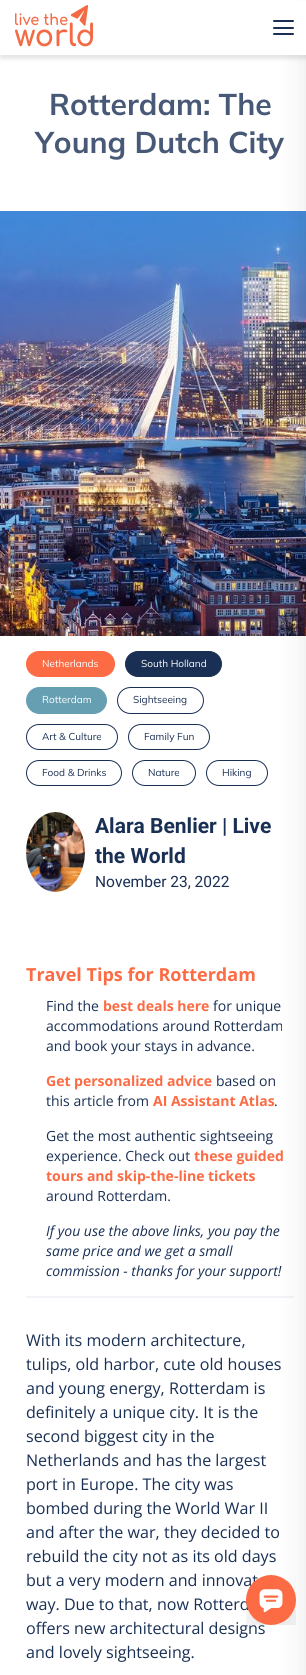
#include <cairo.h>
#include <math.h>
#include <stddef.h>


static void round_rect(cairo_t *cr, double x, double y, double w, double h, double r) {
    cairo_new_sub_path(cr);
    cairo_arc(cr, x + w - r, y + h - r, r, 0, M_PI / 2);
    cairo_arc(cr, x + r, y + h - r, r, M_PI / 2, M_PI);
    cairo_arc(cr, x + r, y + r, r, M_PI, 1.5 * M_PI);
    cairo_arc(cr, x + w - r, y + r, r, 1.5 * M_PI, 2 * M_PI);
    cairo_close_path(cr);
}

static void shadow(cairo_t *cr, double x, double y, double w, double h, double r, double blur, double alpha) {
    cairo_push_group_with_content(cr, CAIRO_CONTENT_ALPHA);
    cairo_set_operator(cr, CAIRO_OPERATOR_SOURCE);
    for (int i = 15; i >= -15 && fmin(w, h) + blur * i / 3 > 0; i -= 2) {
        double e = blur * i / 6;
        cairo_set_source_rgba(cr, 0, 0, 0, alpha * erfc((i - 1) / 8.5) / 2);
        round_rect(cr, x - e, y - e, w + 2 * e, h + 2 * e, fmax(0, fmin(r + e + blur * .6, fmin(w, h) / 2 + e)));
        cairo_fill(cr);
    }
    cairo_pattern_t *soft = cairo_pop_group(cr);
    cairo_mask(cr, soft);
    cairo_pattern_destroy(soft);
}

static void picture(cairo_t *cr, const char *path, double x, double y, double w, double h) {
    cairo_surface_t *image = cairo_image_surface_create_from_png(path);
    cairo_save(cr);
    cairo_set_source_surface(cr, image, x, y);
    cairo_rectangle(cr, x, y, w, h);
    cairo_fill(cr);
    cairo_restore(cr);
    cairo_surface_destroy(image);
}

int main(void) {
    cairo_surface_t *surface = cairo_image_surface_create(CAIRO_FORMAT_RGB24, 306, 1675);
    cairo_t *cr = cairo_create(surface);
    cairo_font_options_t *options = cairo_font_options_create();
    cairo_font_options_set_hint_metrics(options, CAIRO_HINT_METRICS_OFF);
    cairo_font_options_set_hint_style(options, CAIRO_HINT_STYLE_NONE);
    cairo_set_font_options(cr, options);
    cairo_set_miter_limit(cr, 4);
    cairo_set_source_rgb(cr, 1, 1, 1);
    cairo_paint(cr);
    cairo_set_source_rgb(cr, 0, 0, 0);
    shadow(cr, 0, 4, 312, 55, 0, 2, 0.1);
    picture(cr, "img2.png", 0, 211, 306, 425);
    round_rect(cr, 206.5, 760.5, 61, 25, 12.5);
    cairo_set_source_rgb(cr, 0.098, 0.184, 0.329);
    cairo_set_line_width(cr, 1);
    cairo_stroke(cr);
    cairo_set_source_rgb(cr, 0.953, 0.957, 0.969);
    cairo_rectangle(cr, 26, 1296, 268, 2);
    cairo_fill(cr);
    cairo_set_source_rgb(cr, 0, 0, 0);
    shadow(cr, 306, 20, 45, 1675, 0, 15, 0.1);
    cairo_set_source_rgb(cr, 1, 1, 1);
    cairo_rectangle(cr, 0, 1, 306, 54);
    cairo_fill(cr);
    picture(cr, "img1.png", 15, 5, 78, 42);
    cairo_set_source_rgb(cr, 0.098, 0.184, 0.329);
    round_rect(cr, 273, 20, 21, 2, 1);
    cairo_fill(cr);
    round_rect(cr, 273, 27, 21, 2, 1);
    cairo_fill(cr);
    round_rect(cr, 273, 33, 21, 2, 1);
    cairo_fill(cr);
    cairo_select_font_face(cr, "Mulish", CAIRO_FONT_SLANT_NORMAL, CAIRO_FONT_WEIGHT_BOLD);
    cairo_set_font_size(cr, 30);
    cairo_set_source_rgb(cr, 0.278, 0.349, 0.463);
    cairo_move_to(cr, 49, 115);
    cairo_show_text(cr, "Rotterdam: The");
    cairo_move_to(cr, 35, 153);
    cairo_show_text(cr, "Young Dutch City");
    cairo_set_source_rgb(cr, 0.988, 0.42, 0.263);
    round_rect(cr, 26.5, 651.5, 88, 25, 12.5);
    cairo_fill_preserve(cr);
    cairo_stroke(cr);
    cairo_select_font_face(cr, "Mulish", CAIRO_FONT_SLANT_NORMAL, CAIRO_FONT_WEIGHT_NORMAL);
    cairo_set_font_size(cr, 10);
    cairo_set_source_rgb(cr, 1, 1, 1);
    cairo_move_to(cr, 42, 667);
    cairo_show_text(cr, "Netherlands");
    cairo_set_source_rgb(cr, 0.098, 0.184, 0.329);
    round_rect(cr, 125.5, 651.5, 96, 25, 12.5);
    cairo_fill_preserve(cr);
    cairo_stroke(cr);
    cairo_set_source_rgb(cr, 1, 1, 1);
    cairo_move_to(cr, 141, 667);
    cairo_show_text(cr, "South Holland");
    cairo_set_source_rgb(cr, 0.4, 0.624, 0.698);
    round_rect(cr, 26.5, 687.5, 80, 26, 13);
    cairo_fill_preserve(cr);
    cairo_stroke(cr);
    cairo_set_source_rgb(cr, 1, 1, 1);
    cairo_move_to(cr, 42, 703);
    cairo_show_text(cr, "Rotterdam");
    round_rect(cr, 117.5, 687.5, 86, 26, 13);
    cairo_set_source_rgb(cr, 0.098, 0.184, 0.329);
    cairo_stroke(cr);
    cairo_move_to(cr, 133, 703);
    cairo_show_text(cr, "Sightseeing");
    round_rect(cr, 26.5, 724.5, 91, 25, 12.5);
    cairo_stroke(cr);
    cairo_move_to(cr, 42, 740);
    cairo_show_text(cr, "Art & Culture");
    round_rect(cr, 128.5, 724.5, 81, 25, 12.5);
    cairo_stroke(cr);
    cairo_move_to(cr, 144, 740);
    cairo_show_text(cr, "Family Fun");
    round_rect(cr, 26.5, 760.5, 95, 25, 12.5);
    cairo_stroke(cr);
    cairo_move_to(cr, 42, 776);
    cairo_show_text(cr, "Food & Drinks");
    round_rect(cr, 132.5, 760.5, 63, 25, 12.5);
    cairo_stroke(cr);
    cairo_move_to(cr, 148, 776);
    cairo_show_text(cr, "Nature");
    cairo_move_to(cr, 222, 776);
    cairo_show_text(cr, "Hiking");
    picture(cr, "img3.png", 26, 812, 59, 80);
    cairo_select_font_face(cr, "Roboto", CAIRO_FONT_SLANT_NORMAL, CAIRO_FONT_WEIGHT_BOLD);
    cairo_set_font_size(cr, 21);
    cairo_move_to(cr, 95, 833);
    cairo_show_text(cr, "Alara Benlier | Live");
    cairo_move_to(cr, 95, 863);
    cairo_show_text(cr, "the World");
    cairo_select_font_face(cr, "Roboto", CAIRO_FONT_SLANT_NORMAL, CAIRO_FONT_WEIGHT_NORMAL);
    cairo_set_font_size(cr, 15.5);
    cairo_move_to(cr, 95, 887);
    cairo_show_text(cr, "November 23, 2022");
    cairo_select_font_face(cr, "Open Sans", CAIRO_FONT_SLANT_NORMAL, CAIRO_FONT_WEIGHT_BOLD);
    cairo_set_font_size(cr, 18);
    cairo_set_source_rgb(cr, 0.988, 0.42, 0.263);
    cairo_move_to(cr, 26, 981);
    cairo_show_text(cr, "Travel Tips for Rotterdam");
    cairo_select_font_face(cr, "Open Sans", CAIRO_FONT_SLANT_NORMAL, CAIRO_FONT_WEIGHT_NORMAL);
    cairo_set_font_size(cr, 14);
    cairo_set_source_rgb(cr, 0.098, 0.184, 0.329);
    cairo_move_to(cr, 46, 1011);
    cairo_show_text(cr, "Find the");
    cairo_select_font_face(cr, "Open Sans", CAIRO_FONT_SLANT_NORMAL, CAIRO_FONT_WEIGHT_BOLD);
    cairo_set_source_rgb(cr, 0.988, 0.42, 0.263);
    cairo_move_to(cr, 103, 1011);
    cairo_show_text(cr, "best deals here");
    cairo_select_font_face(cr, "Open Sans", CAIRO_FONT_SLANT_NORMAL, CAIRO_FONT_WEIGHT_NORMAL);
    cairo_set_source_rgb(cr, 0.098, 0.184, 0.329);
    cairo_move_to(cr, 213, 1011);
    cairo_show_text(cr, "for unique");
    cairo_move_to(cr, 46, 1031);
    cairo_show_text(cr, "accommodations around Rotterdam");
    cairo_move_to(cr, 46, 1051);
    cairo_show_text(cr, "and book your stays in advance.");
    cairo_select_font_face(cr, "Open Sans", CAIRO_FONT_SLANT_NORMAL, CAIRO_FONT_WEIGHT_BOLD);
    cairo_set_source_rgb(cr, 0.988, 0.42, 0.263);
    cairo_move_to(cr, 46, 1086);
    cairo_show_text(cr, "Get personalized advice");
    cairo_select_font_face(cr, "Open Sans", CAIRO_FONT_SLANT_NORMAL, CAIRO_FONT_WEIGHT_NORMAL);
    cairo_set_source_rgb(cr, 0.098, 0.184, 0.329);
    cairo_move_to(cr, 216, 1086);
    cairo_show_text(cr, "based on");
    cairo_move_to(cr, 46, 1106);
    cairo_show_text(cr, "this article from");
    cairo_select_font_face(cr, "Open Sans", CAIRO_FONT_SLANT_NORMAL, CAIRO_FONT_WEIGHT_BOLD);
    cairo_set_source_rgb(cr, 0.988, 0.42, 0.263);
    cairo_move_to(cr, 153, 1106);
    cairo_show_text(cr, "AI Assistant Atlas");
    cairo_select_font_face(cr, "Open Sans", CAIRO_FONT_SLANT_NORMAL, CAIRO_FONT_WEIGHT_NORMAL);
    cairo_set_source_rgb(cr, 0.098, 0.184, 0.329);
    cairo_move_to(cr, 274, 1106);
    cairo_show_text(cr, ".");
    cairo_move_to(cr, 46, 1141);
    cairo_show_text(cr, "Get the most authentic sightseeing");
    cairo_move_to(cr, 46, 1161);
    cairo_show_text(cr, "experience. Check out");
    cairo_select_font_face(cr, "Open Sans", CAIRO_FONT_SLANT_NORMAL, CAIRO_FONT_WEIGHT_BOLD);
    cairo_set_source_rgb(cr, 0.988, 0.42, 0.263);
    cairo_move_to(cr, 194, 1161);
    cairo_show_text(cr, "these guided");
    cairo_move_to(cr, 46, 1181);
    cairo_show_text(cr, "tours and skip-the-line tickets");
    cairo_select_font_face(cr, "Open Sans", CAIRO_FONT_SLANT_NORMAL, CAIRO_FONT_WEIGHT_NORMAL);
    cairo_set_source_rgb(cr, 0.098, 0.184, 0.329);
    cairo_move_to(cr, 46, 1201);
    cairo_show_text(cr, "around Rotterdam.");
    cairo_select_font_face(cr, "Open Sans", CAIRO_FONT_SLANT_ITALIC, CAIRO_FONT_WEIGHT_NORMAL);
    cairo_move_to(cr, 46, 1236);
    cairo_show_text(cr, "If you use the above links, you pay the");
    cairo_move_to(cr, 46, 1256);
    cairo_show_text(cr, "same price and we get a small");
    cairo_move_to(cr, 46, 1276);
    cairo_show_text(cr, "commission - thanks for your support!");
    cairo_select_font_face(cr, "Open Sans", CAIRO_FONT_SLANT_NORMAL, CAIRO_FONT_WEIGHT_NORMAL);
    cairo_set_font_size(cr, 16.1);
    cairo_move_to(cr, 26, 1346);
    cairo_show_text(cr, "With its modern architecture,");
    cairo_move_to(cr, 26, 1370);
    cairo_show_text(cr, "tulips, old harbor, cute old houses");
    cairo_move_to(cr, 26, 1394);
    cairo_show_text(cr, "and young energy, Rotterdam is");
    cairo_move_to(cr, 26, 1418);
    cairo_show_text(cr, "definitely a unique city. It is the");
    cairo_move_to(cr, 26, 1442);
    cairo_show_text(cr, "second biggest city in the");
    cairo_move_to(cr, 26, 1466);
    cairo_show_text(cr, "Netherlands and has the largest");
    cairo_move_to(cr, 26, 1490);
    cairo_show_text(cr, "port in Europe. The city was");
    cairo_move_to(cr, 26, 1514);
    cairo_show_text(cr, "bombed during the World War II");
    cairo_move_to(cr, 26, 1538);
    cairo_show_text(cr, "and after the war, they decided to");
    cairo_move_to(cr, 26, 1562);
    cairo_show_text(cr, "rebuild the city not as its old days");
    cairo_move_to(cr, 26, 1586);
    cairo_show_text(cr, "but a very modern and innovat");
    cairo_move_to(cr, 26, 1610);
    cairo_show_text(cr, "way. Due to that, now Rotterd");
    cairo_move_to(cr, 26, 1634);
    cairo_show_text(cr, "offers new architectural designs");
    cairo_move_to(cr, 26, 1658);
    cairo_show_text(cr, "and lovely sightseeing.");
    picture(cr, "img4.png", 246, 1575, 50, 50);
    cairo_surface_write_to_png(surface, "page.png");
    cairo_font_options_destroy(options);
    cairo_destroy(cr);
    cairo_surface_destroy(surface);
    return 0;
}
